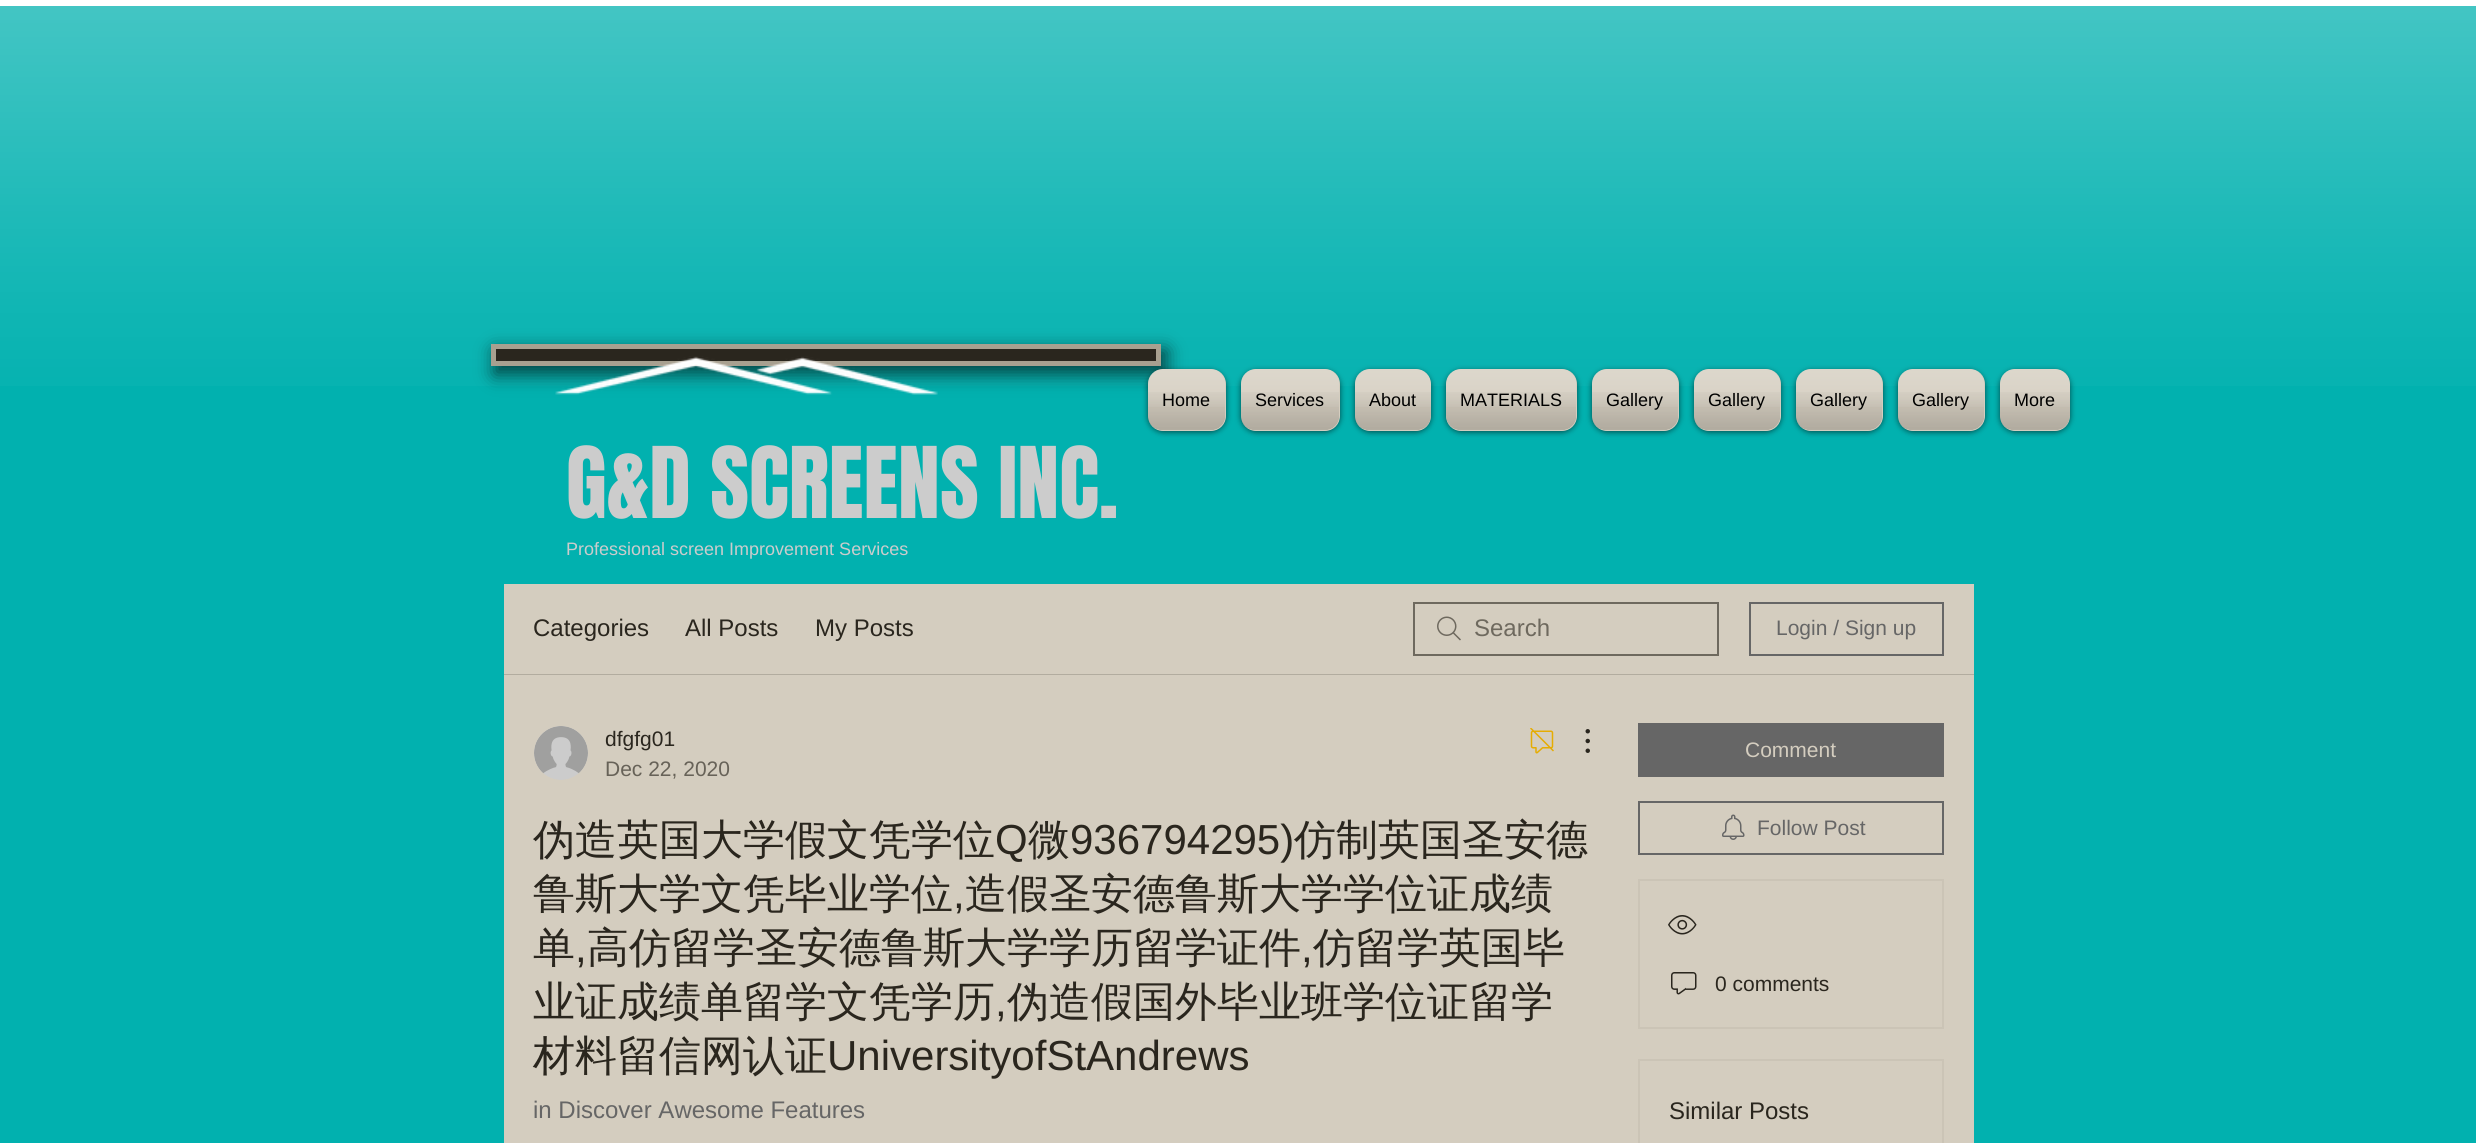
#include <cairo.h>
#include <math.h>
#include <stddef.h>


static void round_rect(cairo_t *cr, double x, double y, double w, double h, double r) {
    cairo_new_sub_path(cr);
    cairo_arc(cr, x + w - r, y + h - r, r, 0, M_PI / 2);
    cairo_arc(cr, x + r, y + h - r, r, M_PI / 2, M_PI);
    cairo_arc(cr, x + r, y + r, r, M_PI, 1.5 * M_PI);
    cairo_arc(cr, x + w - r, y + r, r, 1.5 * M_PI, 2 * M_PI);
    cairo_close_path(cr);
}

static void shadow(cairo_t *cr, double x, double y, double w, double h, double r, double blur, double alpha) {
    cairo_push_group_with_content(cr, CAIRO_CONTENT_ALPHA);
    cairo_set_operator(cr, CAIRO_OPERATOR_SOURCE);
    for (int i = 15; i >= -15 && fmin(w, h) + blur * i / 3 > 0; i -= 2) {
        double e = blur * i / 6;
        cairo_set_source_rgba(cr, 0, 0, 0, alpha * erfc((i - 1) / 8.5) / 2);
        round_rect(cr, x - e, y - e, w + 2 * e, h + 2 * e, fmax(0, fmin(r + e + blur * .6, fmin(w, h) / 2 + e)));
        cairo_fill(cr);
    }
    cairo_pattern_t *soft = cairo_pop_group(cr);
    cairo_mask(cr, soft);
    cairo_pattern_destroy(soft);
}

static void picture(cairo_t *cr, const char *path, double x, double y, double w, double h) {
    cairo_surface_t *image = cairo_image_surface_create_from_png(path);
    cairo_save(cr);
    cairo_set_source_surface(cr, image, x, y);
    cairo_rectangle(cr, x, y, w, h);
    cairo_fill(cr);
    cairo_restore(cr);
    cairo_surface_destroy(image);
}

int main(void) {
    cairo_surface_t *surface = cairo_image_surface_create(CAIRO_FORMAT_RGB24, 2476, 1143);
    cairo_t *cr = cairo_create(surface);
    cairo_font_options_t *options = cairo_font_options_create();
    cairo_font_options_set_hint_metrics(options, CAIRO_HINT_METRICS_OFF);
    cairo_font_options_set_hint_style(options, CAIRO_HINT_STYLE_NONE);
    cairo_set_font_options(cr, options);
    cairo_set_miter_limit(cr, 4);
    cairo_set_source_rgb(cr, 0.004, 0.694, 0.686);
    cairo_paint(cr);
    cairo_set_source_rgb(cr, 1, 1, 1);
    cairo_rectangle(cr, 0, 0, 2476, 6);
    cairo_fill(cr);
    picture(cr, "img1.png", 0, 6, 2476, 380);
    cairo_set_source_rgb(cr, 0, 0, 0);
    shadow(cr, 494, 350, 673, 25, 0, 9, 0.6);
    cairo_set_source_rgb(cr, 0.165, 0.149, 0.118);
    cairo_rectangle(cr, 493.5, 346.5, 665, 17);
    cairo_fill_preserve(cr);
    cairo_set_source_rgb(cr, 0.659, 0.627, 0.565);
    cairo_set_line_width(cr, 5);
    cairo_stroke(cr);
    cairo_set_source_rgb(cr, 0, 0, 0);
    shadow(cr, 1148, 371, 78, 61, 15, 3, 0.6);
    cairo_set_source_rgb(cr, 0.831, 0.804, 0.749);
    round_rect(cr, 1148, 369, 78, 62, 15);
    cairo_fill(cr);
    picture(cr, "img2.png", 1148, 369, 77, 38);
    picture(cr, "img3.png", 1148, 392, 77, 38);
    cairo_select_font_face(cr, "Liberation Sans", CAIRO_FONT_SLANT_NORMAL, CAIRO_FONT_WEIGHT_NORMAL);
    cairo_set_font_size(cr, 18);
    cairo_set_source_rgb(cr, 0, 0, 0);
    cairo_move_to(cr, 1162, 406);
    cairo_show_text(cr, "Home");
    cairo_set_source_rgb(cr, 0, 0, 0);
    shadow(cr, 1241, 371, 99, 61, 15, 3, 0.6);
    cairo_set_source_rgb(cr, 0.831, 0.804, 0.749);
    round_rect(cr, 1241, 369, 99, 62, 15);
    cairo_fill(cr);
    picture(cr, "img4.png", 1241, 369, 98, 38);
    picture(cr, "img5.png", 1241, 392, 98, 38);
    cairo_set_source_rgb(cr, 0, 0, 0);
    cairo_move_to(cr, 1255, 406);
    cairo_show_text(cr, "Services");
    cairo_set_source_rgb(cr, 0, 0, 0);
    shadow(cr, 1355, 371, 76, 61, 15, 3, 0.6);
    cairo_set_source_rgb(cr, 0.831, 0.804, 0.749);
    round_rect(cr, 1355, 369, 76, 62, 15);
    cairo_fill(cr);
    picture(cr, "img6.png", 1355, 369, 76, 38);
    picture(cr, "img7.png", 1355, 392, 76, 38);
    cairo_set_source_rgb(cr, 0, 0, 0);
    cairo_move_to(cr, 1369, 406);
    cairo_show_text(cr, "About");
    cairo_set_source_rgb(cr, 0, 0, 0);
    shadow(cr, 1446, 371, 131, 61, 15, 3, 0.6);
    cairo_set_source_rgb(cr, 0.831, 0.804, 0.749);
    round_rect(cr, 1446, 369, 131, 62, 15);
    cairo_fill(cr);
    picture(cr, "img8.png", 1446, 369, 130, 38);
    picture(cr, "img9.png", 1446, 392, 130, 38);
    cairo_set_source_rgb(cr, 0, 0, 0);
    cairo_move_to(cr, 1460, 406);
    cairo_show_text(cr, "MATERIALS");
    cairo_set_source_rgb(cr, 0, 0, 0);
    shadow(cr, 1592, 371, 87, 61, 15, 3, 0.6);
    cairo_set_source_rgb(cr, 0.831, 0.804, 0.749);
    round_rect(cr, 1592, 369, 87, 62, 15);
    cairo_fill(cr);
    picture(cr, "img10.png", 1592, 369, 86, 38);
    picture(cr, "img11.png", 1592, 392, 86, 38);
    cairo_set_source_rgb(cr, 0, 0, 0);
    cairo_move_to(cr, 1606, 406);
    cairo_show_text(cr, "Gallery");
    cairo_set_source_rgb(cr, 0, 0, 0);
    shadow(cr, 1694, 371, 87, 61, 15, 3, 0.6);
    cairo_set_source_rgb(cr, 0.831, 0.804, 0.749);
    round_rect(cr, 1694, 369, 87, 62, 15);
    cairo_fill(cr);
    picture(cr, "img12.png", 1694, 369, 86, 38);
    picture(cr, "img13.png", 1694, 392, 86, 38);
    cairo_set_source_rgb(cr, 0, 0, 0);
    cairo_move_to(cr, 1708, 406);
    cairo_show_text(cr, "Gallery");
    cairo_set_source_rgb(cr, 0, 0, 0);
    shadow(cr, 1796, 371, 87, 61, 15, 3, 0.6);
    cairo_set_source_rgb(cr, 0.831, 0.804, 0.749);
    round_rect(cr, 1796, 369, 87, 62, 15);
    cairo_fill(cr);
    picture(cr, "img10.png", 1796, 369, 86, 38);
    picture(cr, "img11.png", 1796, 392, 86, 38);
    cairo_set_source_rgb(cr, 0, 0, 0);
    cairo_move_to(cr, 1810, 406);
    cairo_show_text(cr, "Gallery");
    cairo_set_source_rgb(cr, 0, 0, 0);
    shadow(cr, 1898, 371, 87, 61, 15, 3, 0.6);
    cairo_set_source_rgb(cr, 0.831, 0.804, 0.749);
    round_rect(cr, 1898, 369, 87, 62, 15);
    cairo_fill(cr);
    picture(cr, "img10.png", 1898, 369, 86, 38);
    picture(cr, "img11.png", 1898, 392, 86, 38);
    cairo_set_source_rgb(cr, 0, 0, 0);
    cairo_move_to(cr, 1912, 406);
    cairo_show_text(cr, "Gallery");
    cairo_set_source_rgb(cr, 0, 0, 0);
    shadow(cr, 2000, 371, 70, 61, 15, 3, 0.6);
    cairo_set_source_rgb(cr, 0.831, 0.804, 0.749);
    round_rect(cr, 2000, 369, 70, 62, 15);
    cairo_fill(cr);
    picture(cr, "img14.png", 2000, 369, 70, 38);
    picture(cr, "img15.png", 2000, 392, 70, 38);
    cairo_set_source_rgb(cr, 0, 0, 0);
    cairo_move_to(cr, 2014, 406);
    cairo_show_text(cr, "More");
    picture(cr, "img16.png", 555, 356, 383, 39);
    cairo_select_font_face(cr, "Anton", CAIRO_FONT_SLANT_NORMAL, CAIRO_FONT_WEIGHT_NORMAL);
    cairo_set_font_size(cr, 84);
    cairo_set_source_rgb(cr, 0.8, 0.8, 0.8);
    cairo_move_to(cr, 566, 518);
    cairo_show_text(cr, "G&D SCREENS INC.");
    cairo_select_font_face(cr, "Liberation Sans", CAIRO_FONT_SLANT_NORMAL, CAIRO_FONT_WEIGHT_NORMAL);
    cairo_set_font_size(cr, 18);
    cairo_move_to(cr, 566, 555);
    cairo_show_text(cr, "Professional screen Improvement Services");
    cairo_set_source_rgb(cr, 0.831, 0.804, 0.749);
    cairo_rectangle(cr, 504, 584, 1470, 90);
    cairo_fill(cr);
    cairo_set_source_rgb(cr, 0.698, 0.675, 0.624);
    cairo_rectangle(cr, 504, 674, 1470, 1);
    cairo_fill(cr);
    cairo_set_font_size(cr, 24);
    cairo_set_source_rgb(cr, 0.165, 0.149, 0.118);
    cairo_move_to(cr, 533, 636);
    cairo_show_text(cr, "Categories");
    cairo_move_to(cr, 685, 636);
    cairo_show_text(cr, "All Posts");
    cairo_move_to(cr, 815, 636);
    cairo_show_text(cr, "My Posts");
    picture(cr, "img17.png", 1437, 616, 24, 25);
    cairo_rectangle(cr, 1414, 603, 304, 52);
    cairo_set_source_rgb(cr, 0.431, 0.412, 0.369);
    cairo_set_line_width(cr, 2);
    cairo_stroke(cr);
    cairo_move_to(cr, 1474, 636);
    cairo_show_text(cr, "Search");
    cairo_rectangle(cr, 1750, 603, 193, 52);
    cairo_set_source_rgb(cr, 0.4, 0.4, 0.4);
    cairo_stroke(cr);
    cairo_set_font_size(cr, 21);
    cairo_move_to(cr, 1776, 635);
    cairo_show_text(cr, "Login / Sign up");
    cairo_set_source_rgb(cr, 0.831, 0.804, 0.749);
    cairo_rectangle(cr, 504, 675, 1470, 468);
    cairo_fill(cr);
    picture(cr, "img18.png", 534, 726, 54, 54);
    cairo_set_source_rgb(cr, 0.165, 0.149, 0.118);
    cairo_move_to(cr, 605, 746);
    cairo_show_text(cr, "dfgfg01");
    cairo_set_source_rgb(cr, 0.404, 0.384, 0.345);
    cairo_move_to(cr, 605, 776);
    cairo_show_text(cr, "Dec 22, 2020");
    picture(cr, "img19.png", 1530, 728, 24, 26);
    picture(cr, "img20.png", 1585, 729, 5, 24);
    cairo_select_font_face(cr, "WenQuanYi Zen Hei Medium", CAIRO_FONT_SLANT_NORMAL, CAIRO_FONT_WEIGHT_NORMAL);
    cairo_set_font_size(cr, 42);
    cairo_set_source_rgb(cr, 0.165, 0.149, 0.118);
    cairo_move_to(cr, 533, 854);
    cairo_show_text(cr, "伪造英国大学假文凭学位");
    cairo_select_font_face(cr, "Liberation Sans", CAIRO_FONT_SLANT_NORMAL, CAIRO_FONT_WEIGHT_NORMAL);
    cairo_move_to(cr, 995, 854);
    cairo_show_text(cr, "Q");
    cairo_select_font_face(cr, "WenQuanYi Zen Hei Medium", CAIRO_FONT_SLANT_NORMAL, CAIRO_FONT_WEIGHT_NORMAL);
    cairo_move_to(cr, 1028, 854);
    cairo_show_text(cr, "微");
    cairo_select_font_face(cr, "Liberation Sans", CAIRO_FONT_SLANT_NORMAL, CAIRO_FONT_WEIGHT_NORMAL);
    cairo_move_to(cr, 1070, 854);
    cairo_show_text(cr, "936794295)");
    cairo_select_font_face(cr, "WenQuanYi Zen Hei Medium", CAIRO_FONT_SLANT_NORMAL, CAIRO_FONT_WEIGHT_NORMAL);
    cairo_move_to(cr, 1294, 854);
    cairo_show_text(cr, "仿制英国圣安德");
    cairo_move_to(cr, 533, 908);
    cairo_show_text(cr, "鲁斯大学文凭毕业学位");
    cairo_select_font_face(cr, "Liberation Sans", CAIRO_FONT_SLANT_NORMAL, CAIRO_FONT_WEIGHT_NORMAL);
    cairo_move_to(cr, 953, 908);
    cairo_show_text(cr, ",");
    cairo_select_font_face(cr, "WenQuanYi Zen Hei Medium", CAIRO_FONT_SLANT_NORMAL, CAIRO_FONT_WEIGHT_NORMAL);
    cairo_move_to(cr, 965, 908);
    cairo_show_text(cr, "造假圣安德鲁斯大学学位证成绩");
    cairo_move_to(cr, 533, 962);
    cairo_show_text(cr, "单");
    cairo_select_font_face(cr, "Liberation Sans", CAIRO_FONT_SLANT_NORMAL, CAIRO_FONT_WEIGHT_NORMAL);
    cairo_move_to(cr, 575, 962);
    cairo_show_text(cr, ",");
    cairo_select_font_face(cr, "WenQuanYi Zen Hei Medium", CAIRO_FONT_SLANT_NORMAL, CAIRO_FONT_WEIGHT_NORMAL);
    cairo_move_to(cr, 587, 962);
    cairo_show_text(cr, "高仿留学圣安德鲁斯大学学历留学证件");
    cairo_select_font_face(cr, "Liberation Sans", CAIRO_FONT_SLANT_NORMAL, CAIRO_FONT_WEIGHT_NORMAL);
    cairo_move_to(cr, 1301, 962);
    cairo_show_text(cr, ",");
    cairo_select_font_face(cr, "WenQuanYi Zen Hei Medium", CAIRO_FONT_SLANT_NORMAL, CAIRO_FONT_WEIGHT_NORMAL);
    cairo_move_to(cr, 1313, 962);
    cairo_show_text(cr, "仿留学英国毕");
    cairo_move_to(cr, 533, 1016);
    cairo_show_text(cr, "业证成绩单留学文凭学历");
    cairo_select_font_face(cr, "Liberation Sans", CAIRO_FONT_SLANT_NORMAL, CAIRO_FONT_WEIGHT_NORMAL);
    cairo_move_to(cr, 995, 1016);
    cairo_show_text(cr, ",");
    cairo_select_font_face(cr, "WenQuanYi Zen Hei Medium", CAIRO_FONT_SLANT_NORMAL, CAIRO_FONT_WEIGHT_NORMAL);
    cairo_move_to(cr, 1007, 1016);
    cairo_show_text(cr, "伪造假国外毕业班学位证留学");
    cairo_move_to(cr, 533, 1070);
    cairo_show_text(cr, "材料留信网认证");
    cairo_select_font_face(cr, "Liberation Sans", CAIRO_FONT_SLANT_NORMAL, CAIRO_FONT_WEIGHT_NORMAL);
    cairo_move_to(cr, 827, 1070);
    cairo_show_text(cr, "UniversityofStAndrews");
    cairo_set_font_size(cr, 24);
    cairo_set_source_rgb(cr, 0.4, 0.4, 0.4);
    cairo_move_to(cr, 533, 1118);
    cairo_show_text(cr, "in Discover Awesome Features");
    cairo_rectangle(cr, 1638, 723, 306, 54);
    cairo_fill(cr);
    cairo_set_font_size(cr, 21);
    cairo_set_source_rgb(cr, 0.831, 0.804, 0.749);
    cairo_move_to(cr, 1745, 757);
    cairo_show_text(cr, "Comment");
    cairo_rectangle(cr, 1639, 802, 304, 52);
    cairo_set_source_rgb(cr, 0.4, 0.4, 0.4);
    cairo_stroke(cr);
    picture(cr, "img21.png", 1722, 814, 23, 26);
    cairo_move_to(cr, 1757, 835);
    cairo_show_text(cr, "Follow Post");
    cairo_rectangle(cr, 1639, 880, 304, 148);
    cairo_set_source_rgb(cr, 0.796, 0.769, 0.714);
    cairo_stroke(cr);
    picture(cr, "img22.png", 1668, 915, 29, 20);
    picture(cr, "img23.png", 1671, 972, 26, 23);
    cairo_set_source_rgb(cr, 0.165, 0.149, 0.118);
    cairo_move_to(cr, 1715, 991);
    cairo_show_text(cr, "0 comments");
    cairo_rectangle(cr, 1639, 1060, 304, 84);
    cairo_set_source_rgb(cr, 0.796, 0.769, 0.714);
    cairo_stroke(cr);
    cairo_set_font_size(cr, 24);
    cairo_set_source_rgb(cr, 0.165, 0.149, 0.118);
    cairo_move_to(cr, 1669, 1119);
    cairo_show_text(cr, "Similar Posts");
    cairo_surface_write_to_png(surface, "page.png");
    cairo_font_options_destroy(options);
    cairo_destroy(cr);
    cairo_surface_destroy(surface);
    return 0;
}
